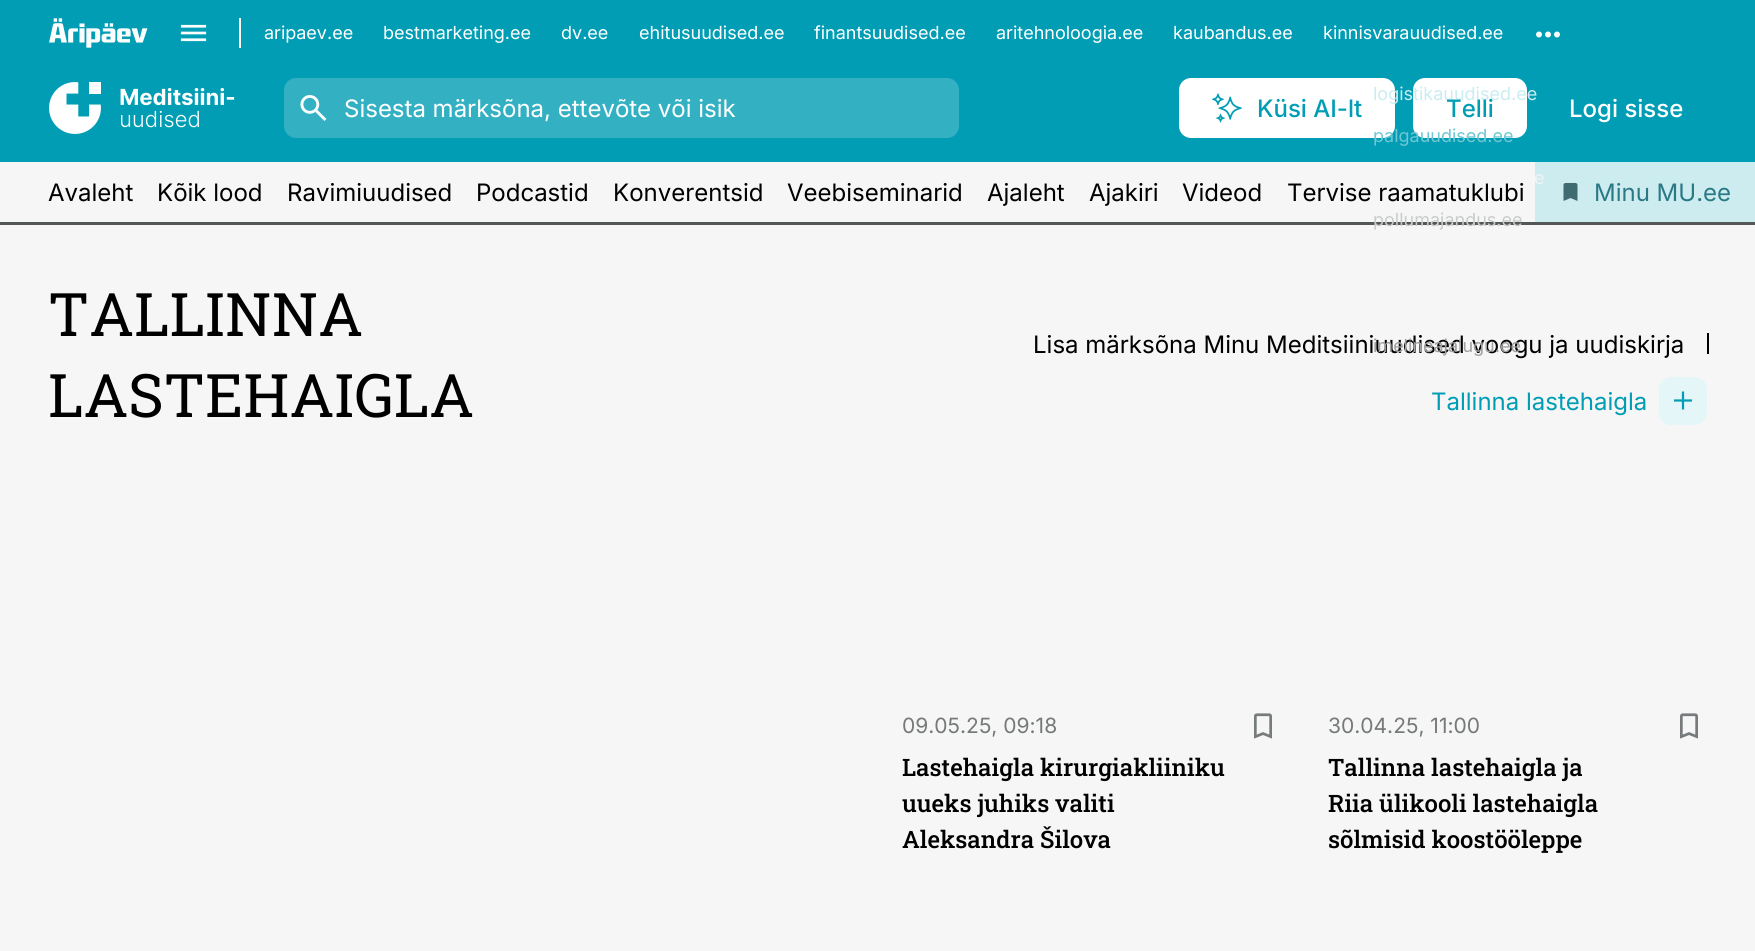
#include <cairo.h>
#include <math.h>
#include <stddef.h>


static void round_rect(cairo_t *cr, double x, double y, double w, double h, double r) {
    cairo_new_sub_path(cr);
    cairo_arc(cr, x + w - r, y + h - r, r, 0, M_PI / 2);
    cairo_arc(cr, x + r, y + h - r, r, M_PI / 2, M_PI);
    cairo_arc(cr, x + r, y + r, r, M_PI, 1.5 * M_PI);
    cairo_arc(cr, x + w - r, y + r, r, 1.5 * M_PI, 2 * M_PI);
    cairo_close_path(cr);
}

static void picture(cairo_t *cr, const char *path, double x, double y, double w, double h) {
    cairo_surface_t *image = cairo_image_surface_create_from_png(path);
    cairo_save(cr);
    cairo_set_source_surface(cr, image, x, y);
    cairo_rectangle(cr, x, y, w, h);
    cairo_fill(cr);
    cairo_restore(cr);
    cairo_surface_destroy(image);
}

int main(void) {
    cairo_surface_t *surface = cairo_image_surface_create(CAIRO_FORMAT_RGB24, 1755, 951);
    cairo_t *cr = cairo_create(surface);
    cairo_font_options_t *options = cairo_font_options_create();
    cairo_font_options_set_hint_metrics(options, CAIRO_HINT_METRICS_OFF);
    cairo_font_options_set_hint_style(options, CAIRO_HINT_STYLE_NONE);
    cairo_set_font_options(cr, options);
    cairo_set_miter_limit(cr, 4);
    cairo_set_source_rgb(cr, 0.961, 0.961, 0.961);
    cairo_paint(cr);
    cairo_set_source_rgb(cr, 0, 0.616, 0.706);
    cairo_rectangle(cr, 0, 0, 1755, 162);
    cairo_fill(cr);
    cairo_set_source_rgb(cr, 1, 1, 1);
    cairo_rectangle(cr, 239, 18, 2, 30);
    cairo_fill(cr);
    picture(cr, "img1.png", 49, 18, 99, 30);
    picture(cr, "img2.png", 180, 24, 27, 18);
    cairo_select_font_face(cr, "Inter", CAIRO_FONT_SLANT_NORMAL, CAIRO_FONT_WEIGHT_NORMAL);
    cairo_set_font_size(cr, 18);
    cairo_move_to(cr, 264, 39);
    cairo_show_text(cr, "aripaev.ee");
    cairo_move_to(cr, 383, 39);
    cairo_show_text(cr, "bestmarketing.ee");
    cairo_move_to(cr, 561, 39);
    cairo_show_text(cr, "dv.ee");
    cairo_move_to(cr, 639, 39);
    cairo_show_text(cr, "ehitusuudised.ee");
    cairo_move_to(cr, 814, 39);
    cairo_show_text(cr, "finantsuudised.ee");
    cairo_move_to(cr, 996, 39);
    cairo_show_text(cr, "aritehnoloogia.ee");
    cairo_move_to(cr, 1173, 39);
    cairo_show_text(cr, "kaubandus.ee");
    cairo_move_to(cr, 1323, 39);
    cairo_show_text(cr, "kinnisvarauudised.ee");
    picture(cr, "img3.png", 1536, 31, 24, 7);
    round_rect(cr, 1179, 78, 216, 60, 12);
    cairo_fill(cr);
    round_rect(cr, 1413, 78, 114, 60, 12);
    cairo_fill(cr);
    cairo_set_source_rgb(cr, 0.796, 0.922, 0.941);
    cairo_move_to(cr, 1373, 100);
    cairo_show_text(cr, "logistikauudised.ee");
    cairo_set_source_rgb(cr, 0.431, 0.78, 0.831);
    cairo_move_to(cr, 1373, 142);
    cairo_show_text(cr, "palgauudised.ee");
    cairo_set_source_rgb(cr, 0.8, 0.922, 0.941);
    cairo_rectangle(cr, 1535, 162, 220, 60);
    cairo_fill(cr);
    cairo_set_source_rgb(cr, 0.945, 0.953, 0.957);
    cairo_move_to(cr, 1534, 184);
    cairo_show_text(cr, "e");
    cairo_set_source_rgb(cr, 0.325, 0.341, 0.345);
    cairo_rectangle(cr, 0, 222, 1755, 3);
    cairo_fill(cr);
    cairo_set_source_rgb(cr, 0.792, 0.796, 0.796);
    cairo_move_to(cr, 1373, 226);
    cairo_show_text(cr, "pollumajandus.ee");
    cairo_set_font_size(cr, 24);
    cairo_set_source_rgb(cr, 0, 0, 0);
    cairo_move_to(cr, 1033, 353);
    cairo_show_text(cr, "Lisa märksõna Minu Meditsiiniuudised voogu ja uudiskirja");
    cairo_set_font_size(cr, 18);
    cairo_set_source_rgb(cr, 0.627, 0.627, 0.627);
    cairo_move_to(cr, 1373, 352);
    cairo_show_text(cr, "imelineajalugu.ee");
    picture(cr, "img4.png", 49, 82, 186, 52);
    cairo_set_source_rgb(cr, 0.2, 0.694, 0.765);
    round_rect(cr, 284, 78, 675, 60, 12);
    cairo_fill(cr);
    picture(cr, "img5.png", 300, 95, 27, 26);
    cairo_set_font_size(cr, 24);
    cairo_set_source_rgb(cr, 1, 1, 1);
    cairo_move_to(cr, 344, 117);
    cairo_show_text(cr, "Sisesta märksõna, ettevõte või isik");
    picture(cr, "img6.png", 1212, 93, 30, 30);
    cairo_select_font_face(cr, "Inter Medium", CAIRO_FONT_SLANT_NORMAL, CAIRO_FONT_WEIGHT_NORMAL);
    cairo_set_source_rgb(cr, 0, 0.616, 0.706);
    cairo_move_to(cr, 1257, 117);
    cairo_show_text(cr, "Küsi AI-lt");
    cairo_move_to(cr, 1446, 117);
    cairo_show_text(cr, "Telli");
    cairo_set_source_rgb(cr, 1, 1, 1);
    cairo_move_to(cr, 1569, 117);
    cairo_show_text(cr, "Logi sisse");
    cairo_select_font_face(cr, "Inter", CAIRO_FONT_SLANT_NORMAL, CAIRO_FONT_WEIGHT_NORMAL);
    cairo_set_source_rgb(cr, 0, 0, 0);
    cairo_move_to(cr, 48, 201);
    cairo_show_text(cr, "Avaleht");
    cairo_move_to(cr, 157, 201);
    cairo_show_text(cr, "Kõik lood");
    cairo_move_to(cr, 287, 201);
    cairo_show_text(cr, "Ravimiuudised");
    cairo_move_to(cr, 476, 201);
    cairo_show_text(cr, "Podcastid");
    cairo_move_to(cr, 613, 201);
    cairo_show_text(cr, "Konverentsid");
    cairo_move_to(cr, 787, 201);
    cairo_show_text(cr, "Veebiseminarid");
    cairo_move_to(cr, 987, 201);
    cairo_show_text(cr, "Ajaleht");
    cairo_move_to(cr, 1089, 201);
    cairo_show_text(cr, "Ajakiri");
    cairo_move_to(cr, 1182, 201);
    cairo_show_text(cr, "Videod");
    cairo_move_to(cr, 1287, 201);
    cairo_show_text(cr, "Tervise raamatuklubi");
    picture(cr, "img7.png", 1563, 183, 15, 18);
    cairo_set_source_rgb(cr, 0.165, 0.478, 0.525);
    cairo_move_to(cr, 1594, 201);
    cairo_show_text(cr, "Minu MU.ee");
    cairo_select_font_face(cr, "Roboto Slab", CAIRO_FONT_SLANT_NORMAL, CAIRO_FONT_WEIGHT_NORMAL);
    cairo_set_font_size(cr, 60);
    cairo_set_source_rgb(cr, 0, 0, 0);
    cairo_move_to(cr, 48, 336);
    cairo_show_text(cr, "TALLINNA");
    cairo_move_to(cr, 48, 417);
    cairo_show_text(cr, "LASTEHAIGLA");
    cairo_rectangle(cr, 1707, 333, 2, 21);
    cairo_fill(cr);
    cairo_select_font_face(cr, "Inter", CAIRO_FONT_SLANT_NORMAL, CAIRO_FONT_WEIGHT_NORMAL);
    cairo_set_font_size(cr, 24);
    cairo_set_source_rgb(cr, 0, 0.616, 0.706);
    cairo_move_to(cr, 1431, 410);
    cairo_show_text(cr, "Tallinna lastehaigla");
    cairo_set_source_rgb(cr, 0.898, 0.961, 0.969);
    round_rect(cr, 1659, 377, 48, 48, 12);
    cairo_fill(cr);
    picture(cr, "img8.png", 1674, 391, 18, 19);
    cairo_set_font_size(cr, 21);
    cairo_set_source_rgb(cr, 0.459, 0.475, 0.475);
    cairo_move_to(cr, 902, 733);
    cairo_show_text(cr, "09.05.25, 09:18");
    picture(cr, "img9.png", 1254, 713, 18, 26);
    cairo_select_font_face(cr, "Roboto Slab Medium", CAIRO_FONT_SLANT_NORMAL, CAIRO_FONT_WEIGHT_NORMAL);
    cairo_set_font_size(cr, 24);
    cairo_set_source_rgb(cr, 0, 0, 0);
    cairo_move_to(cr, 902, 776);
    cairo_show_text(cr, "Lastehaigla kirurgiakliiniku");
    cairo_move_to(cr, 902, 812);
    cairo_show_text(cr, "uueks juhiks valiti");
    cairo_move_to(cr, 902, 848);
    cairo_show_text(cr, "Aleksandra Šilova");
    cairo_select_font_face(cr, "Inter", CAIRO_FONT_SLANT_NORMAL, CAIRO_FONT_WEIGHT_NORMAL);
    cairo_set_font_size(cr, 21);
    cairo_set_source_rgb(cr, 0.459, 0.475, 0.475);
    cairo_move_to(cr, 1328, 733);
    cairo_show_text(cr, "30.04.25, 11:00");
    picture(cr, "img9.png", 1680, 713, 18, 26);
    cairo_select_font_face(cr, "Roboto Slab Medium", CAIRO_FONT_SLANT_NORMAL, CAIRO_FONT_WEIGHT_NORMAL);
    cairo_set_font_size(cr, 24);
    cairo_set_source_rgb(cr, 0, 0, 0);
    cairo_move_to(cr, 1328, 776);
    cairo_show_text(cr, "Tallinna lastehaigla ja");
    cairo_move_to(cr, 1328, 812);
    cairo_show_text(cr, "Riia ülikooli lastehaigla");
    cairo_move_to(cr, 1328, 848);
    cairo_show_text(cr, "sõlmisid koostööleppe");
    cairo_surface_write_to_png(surface, "page.png");
    cairo_font_options_destroy(options);
    cairo_destroy(cr);
    cairo_surface_destroy(surface);
    return 0;
}
